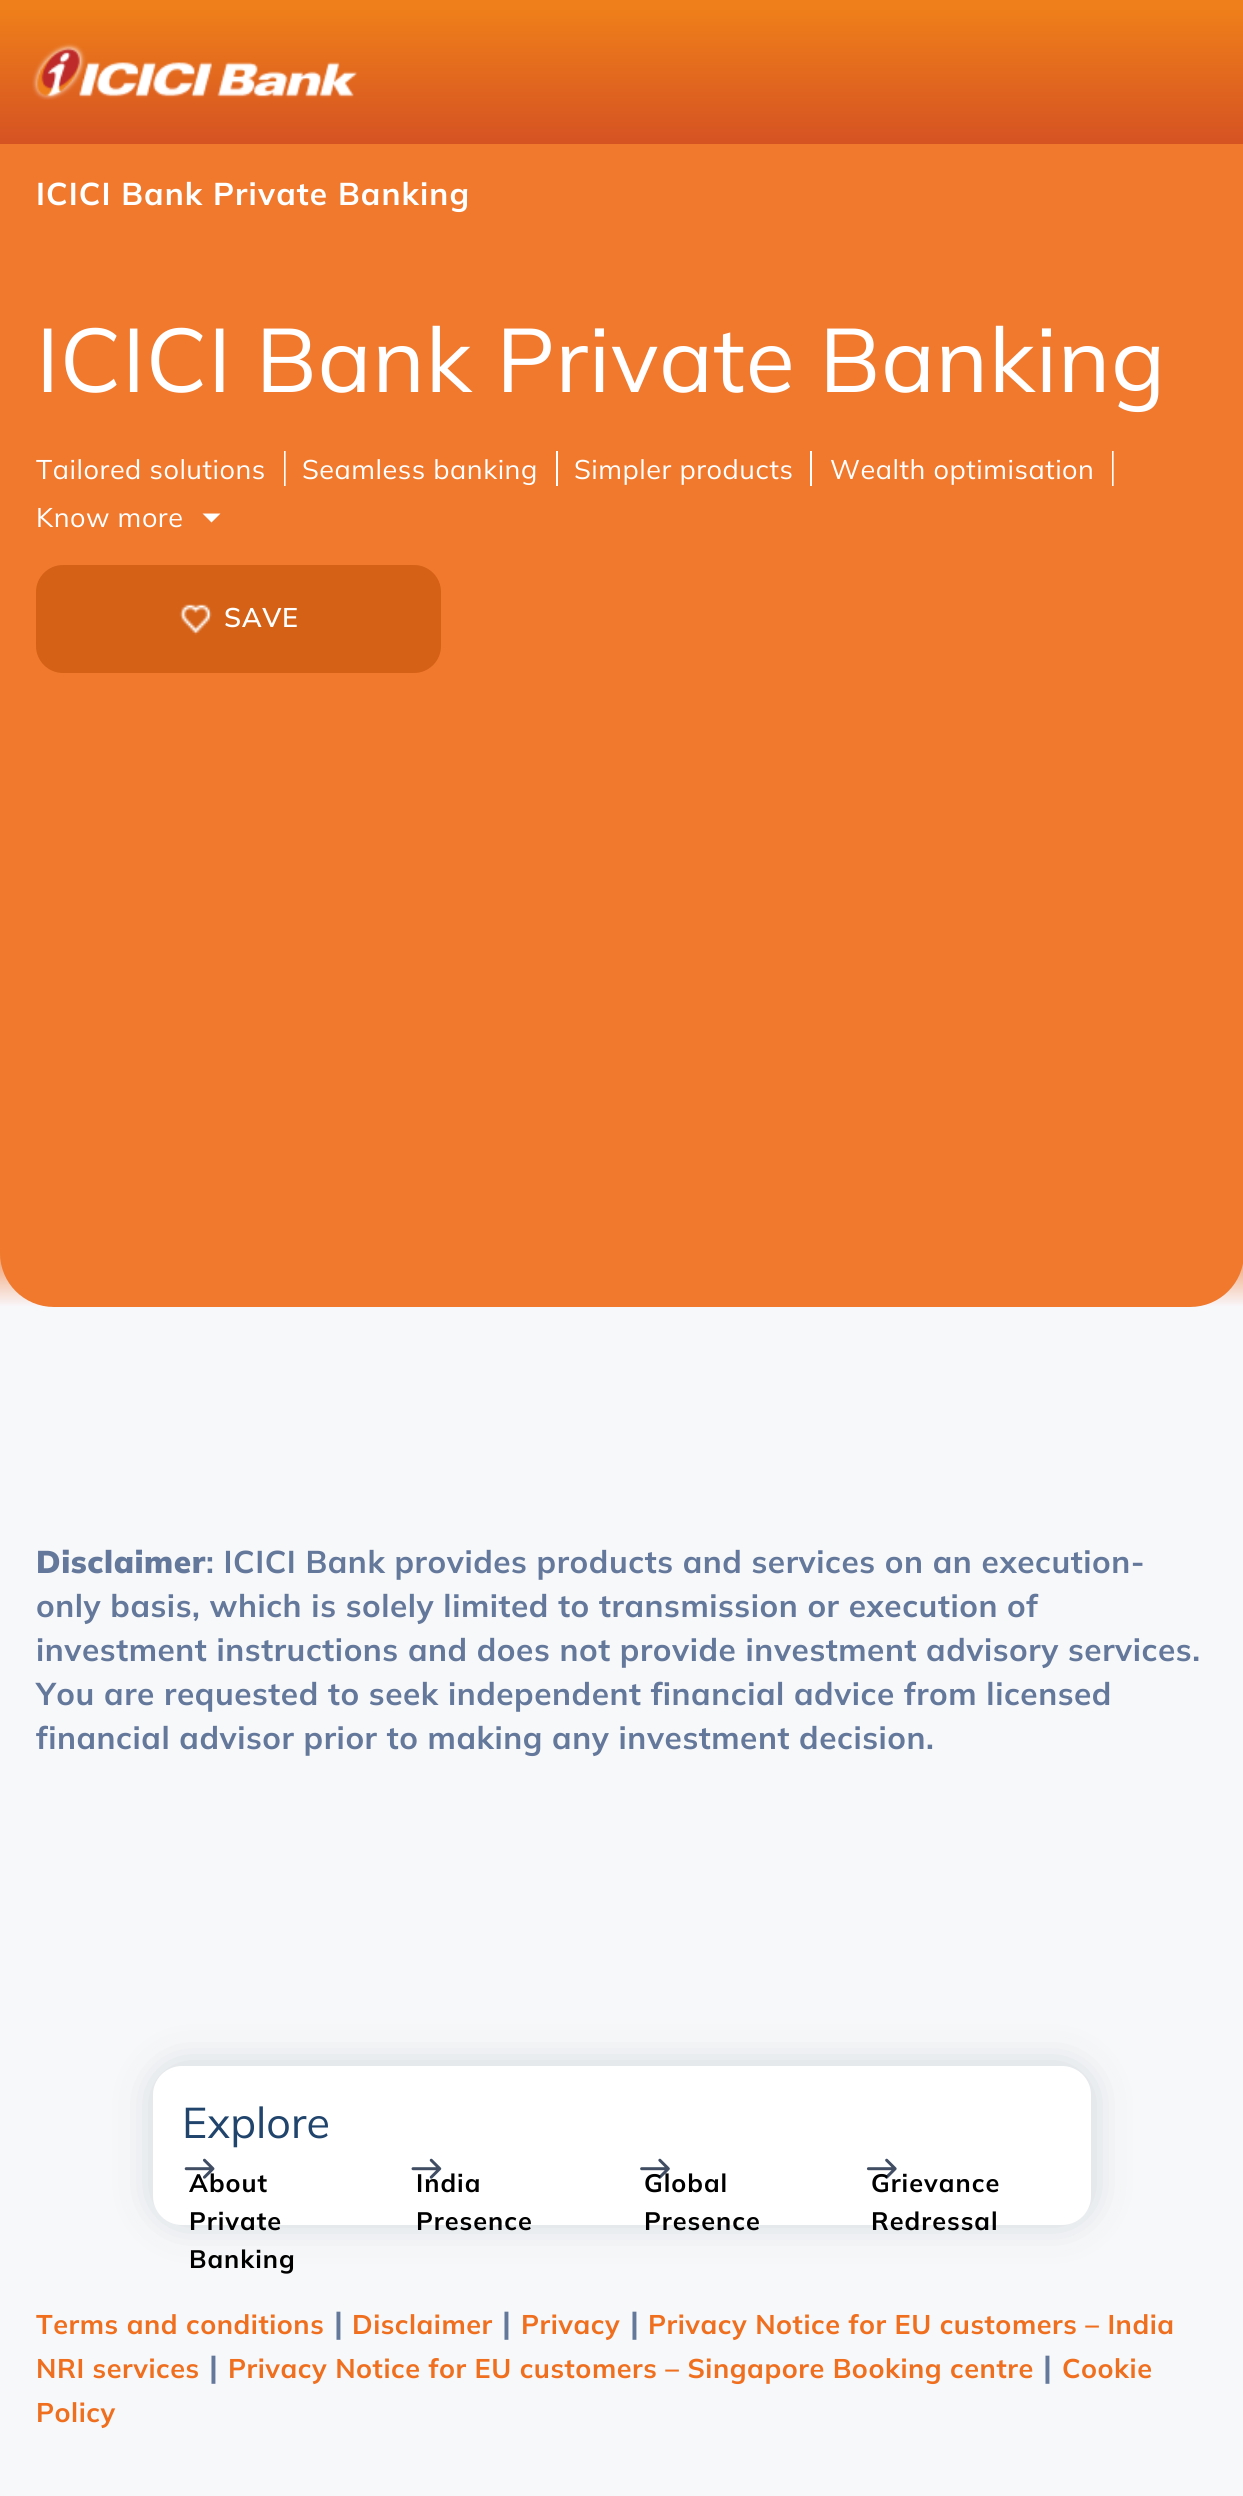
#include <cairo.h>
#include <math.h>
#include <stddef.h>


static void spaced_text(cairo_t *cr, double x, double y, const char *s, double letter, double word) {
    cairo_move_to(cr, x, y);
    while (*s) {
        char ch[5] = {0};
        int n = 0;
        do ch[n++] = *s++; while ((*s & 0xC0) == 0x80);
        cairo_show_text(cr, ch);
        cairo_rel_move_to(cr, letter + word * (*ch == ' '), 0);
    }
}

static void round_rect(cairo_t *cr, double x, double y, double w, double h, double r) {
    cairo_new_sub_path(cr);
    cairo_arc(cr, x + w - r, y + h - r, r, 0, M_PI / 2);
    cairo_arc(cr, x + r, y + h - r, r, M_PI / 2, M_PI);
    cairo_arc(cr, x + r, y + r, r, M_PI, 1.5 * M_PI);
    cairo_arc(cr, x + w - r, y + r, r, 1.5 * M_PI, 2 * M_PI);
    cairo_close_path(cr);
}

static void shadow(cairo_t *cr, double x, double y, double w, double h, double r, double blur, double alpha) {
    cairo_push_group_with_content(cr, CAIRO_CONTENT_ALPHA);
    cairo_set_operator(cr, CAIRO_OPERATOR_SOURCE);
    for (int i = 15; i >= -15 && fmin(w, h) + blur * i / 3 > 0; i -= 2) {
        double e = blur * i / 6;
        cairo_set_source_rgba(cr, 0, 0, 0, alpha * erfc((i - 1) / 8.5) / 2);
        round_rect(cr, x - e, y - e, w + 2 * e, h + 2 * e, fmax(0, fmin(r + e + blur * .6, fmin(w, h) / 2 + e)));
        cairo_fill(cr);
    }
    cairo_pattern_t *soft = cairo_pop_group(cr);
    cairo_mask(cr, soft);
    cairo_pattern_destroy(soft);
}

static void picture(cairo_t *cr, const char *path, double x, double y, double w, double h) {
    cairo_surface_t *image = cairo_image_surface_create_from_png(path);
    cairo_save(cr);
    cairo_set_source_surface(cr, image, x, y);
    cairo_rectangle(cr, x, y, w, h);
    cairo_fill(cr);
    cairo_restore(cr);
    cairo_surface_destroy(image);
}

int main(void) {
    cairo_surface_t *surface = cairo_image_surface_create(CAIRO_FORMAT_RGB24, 1243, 2496);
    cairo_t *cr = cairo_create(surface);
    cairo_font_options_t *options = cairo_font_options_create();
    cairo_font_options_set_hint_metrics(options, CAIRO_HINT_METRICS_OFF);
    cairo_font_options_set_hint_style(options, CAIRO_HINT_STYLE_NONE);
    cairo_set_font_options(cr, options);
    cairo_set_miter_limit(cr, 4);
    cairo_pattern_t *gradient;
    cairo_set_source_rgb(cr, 0.965, 0.969, 0.976);
    cairo_paint(cr);
    gradient = cairo_pattern_create_linear(622, 1307, 622, 0);
    cairo_pattern_add_color_stop_rgba(gradient, 0, 0.973, 0.969, 0.984, 1);
    cairo_pattern_add_color_stop_rgba(gradient, 0.06, 0.937, 0.435, 0.122, 1);
    cairo_set_source(cr, gradient);
    cairo_pattern_destroy(gradient);
    cairo_rectangle(cr, 0, 1253, 1243, 53);
    cairo_fill(cr);
    cairo_set_source_rgb(cr, 0.941, 0.475, 0.18);
    cairo_new_path(cr);
    cairo_move_to(cr, 0, 0);
    cairo_line_to(cr, 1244, 0);
    cairo_line_to(cr, 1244, 1253);
    cairo_curve_to(cr, 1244, 1283, 1220, 1307, 1190, 1307);
    cairo_line_to(cr, 54, 1307);
    cairo_curve_to(cr, 24, 1307, 0, 1283, 0, 1253);
    cairo_close_path(cr);
    cairo_fill(cr);
    gradient = cairo_pattern_create_linear(622, 268, 622, 0);
    cairo_pattern_add_color_stop_rgba(gradient, 0, 0.745, 0.165, 0.165, 1);
    cairo_pattern_add_color_stop_rgba(gradient, 0.97, 0.937, 0.498, 0.102, 1);
    cairo_set_source(cr, gradient);
    cairo_pattern_destroy(gradient);
    cairo_rectangle(cr, 0, 0, 1243, 144);
    cairo_fill(cr);
    picture(cr, "img1.png", 32, 43, 326, 57);
    cairo_select_font_face(cr, "Mulish", CAIRO_FONT_SLANT_NORMAL, CAIRO_FONT_WEIGHT_BOLD);
    cairo_set_font_size(cr, 31.5);
    cairo_set_source_rgb(cr, 1, 1, 1);
    spaced_text(cr, 36, 205, "ICICI Bank Private Banking", 1.1, 0);
    cairo_select_font_face(cr, "Mulish", CAIRO_FONT_SLANT_NORMAL, CAIRO_FONT_WEIGHT_NORMAL);
    cairo_set_font_size(cr, 90);
    spaced_text(cr, 36, 392, "ICICI Bank Private Banking", 0.55, 0);
    cairo_set_font_size(cr, 27);
    spaced_text(cr, 36, 479, "Tailored solutions", 0.55, 0);
    cairo_save(cr);
    cairo_rectangle(cr, 284, 450, 2, 36);
    cairo_clip(cr);
    cairo_new_path(cr);
    cairo_move_to(cr, 284.5, 451);
    cairo_line_to(cr, 284.5, 487);
    cairo_set_line_width(cr, 2.2);
    cairo_stroke(cr);
    cairo_restore(cr);
    spaced_text(cr, 302, 479, "Seamless banking", 0.55, 0);
    cairo_rectangle(cr, 556, 451, 2, 35);
    cairo_fill(cr);
    spaced_text(cr, 574, 479, "Simpler products", 0.55, 0);
    cairo_rectangle(cr, 810, 451, 2, 35);
    cairo_fill(cr);
    spaced_text(cr, 830, 479, "Wealth optimisation", 0.55, 0);
    cairo_save(cr);
    cairo_rectangle(cr, 1112, 450, 2, 36);
    cairo_clip(cr);
    cairo_new_path(cr);
    cairo_move_to(cr, 1112.5, 451);
    cairo_line_to(cr, 1112.5, 487);
    cairo_set_line_width(cr, 2.2);
    cairo_stroke(cr);
    cairo_restore(cr);
    spaced_text(cr, 36, 527, "Know more", 0.55, 0);
    cairo_new_path(cr);
    cairo_move_to(cr, 211.5, 522.5);
    cairo_line_to(cr, 202.5, 513.5);
    cairo_line_to(cr, 220.5, 513.5);
    cairo_close_path(cr);
    cairo_fill(cr);
    cairo_set_source_rgb(cr, 0.835, 0.38, 0.086);
    round_rect(cr, 36, 565, 405, 108, 27);
    cairo_fill(cr);
    picture(cr, "img2.png", 179, 604, 33, 31);
    cairo_select_font_face(cr, "Mulish SemiBold", CAIRO_FONT_SLANT_NORMAL, CAIRO_FONT_WEIGHT_NORMAL);
    cairo_set_source_rgb(cr, 1, 1, 1);
    spaced_text(cr, 224, 627, "SAVE", 0.55, 0);
    cairo_select_font_face(cr, "Mulish Black", CAIRO_FONT_SLANT_NORMAL, CAIRO_FONT_WEIGHT_NORMAL);
    cairo_set_font_size(cr, 31.5);
    cairo_set_source_rgb(cr, 0.392, 0.471, 0.608);
    spaced_text(cr, 36, 1573, "Disclaimer", 0.55, 0);
    cairo_select_font_face(cr, "Mulish", CAIRO_FONT_SLANT_NORMAL, CAIRO_FONT_WEIGHT_BOLD);
    spaced_text(cr, 206, 1573, ": ICICI Bank provides products and services on an execution-", 0.55, 0);
    spaced_text(cr, 36, 1617, "only basis, which is solely limited to transmission or execution of", 0.55, 0);
    spaced_text(cr, 36, 1661, "investment instructions and does not provide investment advisory services.", 0.55, 0);
    spaced_text(cr, 36, 1705, "You are requested to seek independent financial advice from licensed", 0.55, 0);
    spaced_text(cr, 36, 1749, "financial advisor prior to making any investment decision.", 0.55, 0);
    cairo_set_source_rgb(cr, 0.831, 0.851, 0.871);
    shadow(cr, 151, 2063, 943, 162, 32, 18, 1);
    cairo_set_source_rgb(cr, 1, 1, 1);
    round_rect(cr, 153, 2066, 938, 159, 29);
    cairo_fill(cr);
    cairo_select_font_face(cr, "Mulish", CAIRO_FONT_SLANT_NORMAL, CAIRO_FONT_WEIGHT_NORMAL);
    cairo_set_font_size(cr, 43);
    cairo_set_source_rgb(cr, 0.125, 0.267, 0.424);
    cairo_move_to(cr, 182, 2138);
    cairo_show_text(cr, "Explore");
    picture(cr, "img3.png", 184, 2158, 31, 21);
    cairo_select_font_face(cr, "Mulish", CAIRO_FONT_SLANT_NORMAL, CAIRO_FONT_WEIGHT_BOLD);
    cairo_set_font_size(cr, 25.25);
    cairo_set_source_rgb(cr, 0, 0, 0);
    spaced_text(cr, 189, 2192, "About", 1, 0);
    spaced_text(cr, 189, 2230, "Private", 1, 0);
    spaced_text(cr, 189, 2268, "Banking", 1, 0);
    picture(cr, "img4.png", 411, 2158, 31, 21);
    spaced_text(cr, 416, 2192, "India", 1, 0);
    spaced_text(cr, 416, 2230, "Presence", 1, 0);
    picture(cr, "img5.png", 640, 2158, 30, 21);
    spaced_text(cr, 644, 2192, "Global", 1, 0);
    spaced_text(cr, 644, 2230, "Presence", 1, 0);
    picture(cr, "img6.png", 866, 2158, 31, 21);
    spaced_text(cr, 871, 2192, "Grievance", 1, 0);
    spaced_text(cr, 871, 2230, "Redressal", 1, 0);
    cairo_set_font_size(cr, 27);
    cairo_set_source_rgb(cr, 0.937, 0.435, 0.122);
    spaced_text(cr, 36, 2334, "Terms and conditions", 0.55, 0);
    cairo_set_font_size(cr, 31.5);
    cairo_set_source_rgb(cr, 0.392, 0.471, 0.608);
    spaced_text(cr, 334, 2334, "|", 0.55, 0);
    cairo_set_font_size(cr, 27);
    cairo_set_source_rgb(cr, 0.937, 0.435, 0.122);
    spaced_text(cr, 352, 2334, "Disclaimer", 0.55, 0);
    cairo_set_font_size(cr, 31.5);
    cairo_set_source_rgb(cr, 0.392, 0.471, 0.608);
    spaced_text(cr, 502, 2334, "|", 0.55, 0);
    cairo_set_font_size(cr, 27);
    cairo_set_source_rgb(cr, 0.937, 0.435, 0.122);
    spaced_text(cr, 521, 2334, "Privacy", 0.55, 0);
    cairo_set_font_size(cr, 31.5);
    cairo_set_source_rgb(cr, 0.392, 0.471, 0.608);
    spaced_text(cr, 630, 2334, "|", 0.55, 0);
    cairo_set_font_size(cr, 27);
    cairo_set_source_rgb(cr, 0.937, 0.435, 0.122);
    spaced_text(cr, 648, 2334, "Privacy Notice for EU customers – India", 0.55, 0);
    spaced_text(cr, 36, 2378, "NRI services", 0.55, 0);
    cairo_set_font_size(cr, 31.5);
    cairo_set_source_rgb(cr, 0.392, 0.471, 0.608);
    spaced_text(cr, 209, 2378, "|", 0.55, 0);
    cairo_set_font_size(cr, 27);
    cairo_set_source_rgb(cr, 0.937, 0.435, 0.122);
    spaced_text(cr, 228, 2378, "Privacy Notice for EU customers – Singapore Booking centre", 0.55, 0);
    cairo_set_font_size(cr, 31.5);
    cairo_set_source_rgb(cr, 0.392, 0.471, 0.608);
    spaced_text(cr, 1043, 2378, "|", 0.55, 0);
    cairo_set_font_size(cr, 27);
    cairo_set_source_rgb(cr, 0.937, 0.435, 0.122);
    spaced_text(cr, 1062, 2378, "Cookie", 0.55, 0);
    spaced_text(cr, 36, 2422, "Policy", 0.55, 0);
    cairo_surface_write_to_png(surface, "page.png");
    cairo_font_options_destroy(options);
    cairo_destroy(cr);
    cairo_surface_destroy(surface);
    return 0;
}
